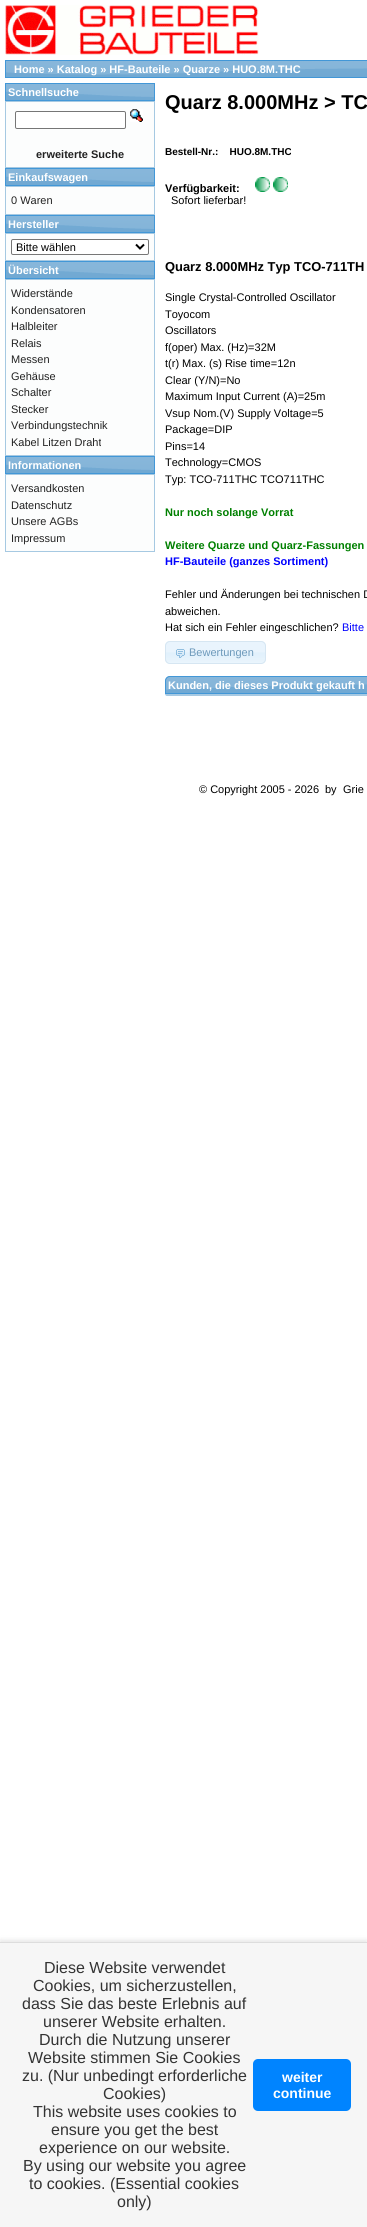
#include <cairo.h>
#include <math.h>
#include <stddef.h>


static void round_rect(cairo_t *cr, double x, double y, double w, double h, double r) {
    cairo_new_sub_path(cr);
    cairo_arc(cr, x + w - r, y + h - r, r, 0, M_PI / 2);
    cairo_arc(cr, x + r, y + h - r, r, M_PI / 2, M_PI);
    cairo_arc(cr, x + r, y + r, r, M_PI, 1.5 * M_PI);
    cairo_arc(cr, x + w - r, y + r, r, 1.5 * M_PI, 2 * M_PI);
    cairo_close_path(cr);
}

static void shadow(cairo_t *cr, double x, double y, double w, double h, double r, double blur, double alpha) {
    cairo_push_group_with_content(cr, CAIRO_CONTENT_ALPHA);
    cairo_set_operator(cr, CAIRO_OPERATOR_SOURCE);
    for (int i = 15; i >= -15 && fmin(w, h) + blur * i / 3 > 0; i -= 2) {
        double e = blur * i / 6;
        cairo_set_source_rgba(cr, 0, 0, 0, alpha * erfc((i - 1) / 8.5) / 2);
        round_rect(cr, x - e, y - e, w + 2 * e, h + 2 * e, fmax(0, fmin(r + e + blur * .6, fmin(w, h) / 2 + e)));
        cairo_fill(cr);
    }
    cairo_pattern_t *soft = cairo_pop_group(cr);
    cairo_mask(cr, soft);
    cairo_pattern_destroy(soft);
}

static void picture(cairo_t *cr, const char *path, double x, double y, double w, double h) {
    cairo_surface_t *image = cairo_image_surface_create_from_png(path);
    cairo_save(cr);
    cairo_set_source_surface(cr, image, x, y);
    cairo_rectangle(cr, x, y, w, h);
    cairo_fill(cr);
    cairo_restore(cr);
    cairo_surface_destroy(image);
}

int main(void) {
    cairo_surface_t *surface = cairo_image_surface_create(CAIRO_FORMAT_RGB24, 367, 2227);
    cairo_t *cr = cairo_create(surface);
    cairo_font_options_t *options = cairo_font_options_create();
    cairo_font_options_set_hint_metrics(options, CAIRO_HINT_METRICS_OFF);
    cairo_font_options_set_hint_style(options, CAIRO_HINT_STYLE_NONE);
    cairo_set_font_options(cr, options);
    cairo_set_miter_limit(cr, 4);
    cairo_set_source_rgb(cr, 1, 1, 1);
    cairo_paint(cr);
    picture(cr, "img1.png", 5, 5, 254, 50);
    picture(cr, "img2.png", 6, 61, 361, 16);
    cairo_rectangle(cr, 5.5, 60.5, 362, 17);
    cairo_set_source_rgb(cr, 0.259, 0.592, 0.843);
    cairo_set_line_width(cr, 1);
    cairo_stroke(cr);
    cairo_select_font_face(cr, "Liberation Sans", CAIRO_FONT_SLANT_NORMAL, CAIRO_FONT_WEIGHT_BOLD);
    cairo_set_font_size(cr, 11);
    cairo_set_source_rgb(cr, 1, 1, 1);
    cairo_move_to(cr, 14, 73);
    cairo_show_text(cr, "Home » Katalog » HF-Bauteile » Quarze » HUO.8M.THC");
    picture(cr, "img3.png", 6, 84, 148, 16);
    cairo_rectangle(cr, 5.5, 83.5, 149, 17);
    cairo_set_source_rgb(cr, 0.259, 0.592, 0.843);
    cairo_stroke(cr);
    cairo_set_source_rgb(cr, 1, 1, 1);
    cairo_move_to(cr, 8, 96);
    cairo_show_text(cr, "Schnellsuche");
    cairo_set_source_rgb(cr, 0.988, 0.992, 0.992);
    cairo_rectangle(cr, 5.5, 101.5, 149, 66);
    cairo_fill_preserve(cr);
    cairo_set_source_rgb(cr, 0.651, 0.788, 0.886);
    cairo_stroke(cr);
    cairo_set_source_rgb(cr, 1, 1, 1);
    round_rect(cr, 15.5, 111.5, 110, 17, 1.5);
    cairo_fill_preserve(cr);
    cairo_set_source_rgb(cr, 0.463, 0.463, 0.463);
    cairo_stroke(cr);
    picture(cr, "img4.png", 130, 109, 13, 13);
    cairo_set_source_rgb(cr, 0.133, 0.133, 0.133);
    cairo_move_to(cr, 36, 158);
    cairo_show_text(cr, "erweiterte Suche");
    picture(cr, "img3.png", 6, 169, 148, 16);
    cairo_rectangle(cr, 5.5, 168.5, 149, 17);
    cairo_set_source_rgb(cr, 0.259, 0.592, 0.843);
    cairo_stroke(cr);
    cairo_set_source_rgb(cr, 1, 1, 1);
    cairo_move_to(cr, 8, 181);
    cairo_show_text(cr, "Einkaufswagen");
    cairo_set_source_rgb(cr, 0.988, 0.992, 0.992);
    cairo_rectangle(cr, 5.5, 186.5, 149, 28);
    cairo_fill_preserve(cr);
    cairo_set_source_rgb(cr, 0.651, 0.788, 0.886);
    cairo_stroke(cr);
    cairo_select_font_face(cr, "Liberation Sans", CAIRO_FONT_SLANT_NORMAL, CAIRO_FONT_WEIGHT_NORMAL);
    cairo_set_source_rgb(cr, 0.133, 0.133, 0.133);
    cairo_move_to(cr, 11, 204);
    cairo_show_text(cr, "0 Waren");
    picture(cr, "img3.png", 6, 216, 148, 16);
    cairo_rectangle(cr, 5.5, 215.5, 149, 17);
    cairo_set_source_rgb(cr, 0.259, 0.592, 0.843);
    cairo_stroke(cr);
    cairo_select_font_face(cr, "Liberation Sans", CAIRO_FONT_SLANT_NORMAL, CAIRO_FONT_WEIGHT_BOLD);
    cairo_set_source_rgb(cr, 1, 1, 1);
    cairo_move_to(cr, 8, 228);
    cairo_show_text(cr, "Hersteller");
    cairo_set_source_rgb(cr, 0.988, 0.992, 0.992);
    cairo_rectangle(cr, 5.5, 233.5, 149, 27);
    cairo_fill_preserve(cr);
    cairo_set_source_rgb(cr, 0.651, 0.788, 0.886);
    cairo_stroke(cr);
    cairo_set_source_rgb(cr, 1, 1, 1);
    round_rect(cr, 11.5, 239.5, 137, 15, 1.5);
    cairo_fill_preserve(cr);
    cairo_set_source_rgb(cr, 0.463, 0.463, 0.463);
    cairo_stroke(cr);
    cairo_new_path(cr);
    cairo_move_to(cr, 136, 244.5);
    cairo_line_to(cr, 140, 248.5);
    cairo_line_to(cr, 144, 244.5);
    cairo_set_source_rgb(cr, 0, 0, 0);
    cairo_set_line_width(cr, 2);
    cairo_stroke(cr);
    cairo_select_font_face(cr, "Liberation Sans", CAIRO_FONT_SLANT_NORMAL, CAIRO_FONT_WEIGHT_NORMAL);
    cairo_move_to(cr, 16, 251);
    cairo_show_text(cr, "Bitte wählen");
    picture(cr, "img3.png", 6, 262, 148, 16);
    cairo_rectangle(cr, 5.5, 261.5, 149, 17);
    cairo_set_source_rgb(cr, 0.259, 0.592, 0.843);
    cairo_set_line_width(cr, 1);
    cairo_stroke(cr);
    cairo_select_font_face(cr, "Liberation Sans", CAIRO_FONT_SLANT_NORMAL, CAIRO_FONT_WEIGHT_BOLD);
    cairo_set_source_rgb(cr, 1, 1, 1);
    cairo_move_to(cr, 8, 274);
    cairo_show_text(cr, "Übersicht");
    cairo_set_source_rgb(cr, 0.988, 0.992, 0.992);
    cairo_rectangle(cr, 5.5, 279.5, 149, 176);
    cairo_fill_preserve(cr);
    cairo_set_source_rgb(cr, 0.651, 0.788, 0.886);
    cairo_stroke(cr);
    cairo_select_font_face(cr, "Liberation Sans", CAIRO_FONT_SLANT_NORMAL, CAIRO_FONT_WEIGHT_NORMAL);
    cairo_set_source_rgb(cr, 0.133, 0.133, 0.133);
    cairo_move_to(cr, 11, 297);
    cairo_show_text(cr, "Widerstände");
    cairo_move_to(cr, 11, 314);
    cairo_show_text(cr, "Kondensatoren");
    cairo_move_to(cr, 11, 330);
    cairo_show_text(cr, "Halbleiter");
    cairo_move_to(cr, 11, 347);
    cairo_show_text(cr, "Relais");
    cairo_move_to(cr, 11, 363);
    cairo_show_text(cr, "Messen");
    cairo_move_to(cr, 11, 380);
    cairo_show_text(cr, "Gehäuse");
    cairo_move_to(cr, 11, 396);
    cairo_show_text(cr, "Schalter");
    cairo_move_to(cr, 11, 413);
    cairo_show_text(cr, "Stecker");
    cairo_move_to(cr, 11, 429);
    cairo_show_text(cr, "Verbindungstechnik");
    cairo_move_to(cr, 11, 446);
    cairo_show_text(cr, "Kabel Litzen Draht");
    picture(cr, "img3.png", 6, 457, 148, 16);
    cairo_rectangle(cr, 5.5, 456.5, 149, 17);
    cairo_set_source_rgb(cr, 0.259, 0.592, 0.843);
    cairo_stroke(cr);
    cairo_select_font_face(cr, "Liberation Sans", CAIRO_FONT_SLANT_NORMAL, CAIRO_FONT_WEIGHT_BOLD);
    cairo_set_source_rgb(cr, 1, 1, 1);
    cairo_move_to(cr, 8, 469);
    cairo_show_text(cr, "Informationen");
    cairo_set_source_rgb(cr, 0.988, 0.992, 0.992);
    cairo_rectangle(cr, 5.5, 474.5, 149, 77);
    cairo_fill_preserve(cr);
    cairo_set_source_rgb(cr, 0.651, 0.788, 0.886);
    cairo_stroke(cr);
    cairo_select_font_face(cr, "Liberation Sans", CAIRO_FONT_SLANT_NORMAL, CAIRO_FONT_WEIGHT_NORMAL);
    cairo_set_source_rgb(cr, 0.133, 0.133, 0.133);
    cairo_move_to(cr, 11, 492);
    cairo_show_text(cr, "Versandkosten");
    cairo_move_to(cr, 11, 509);
    cairo_show_text(cr, "Datenschutz");
    cairo_move_to(cr, 11, 525);
    cairo_show_text(cr, "Unsere AGBs");
    cairo_move_to(cr, 11, 542);
    cairo_show_text(cr, "Impressum");
    cairo_select_font_face(cr, "Liberation Sans", CAIRO_FONT_SLANT_NORMAL, CAIRO_FONT_WEIGHT_BOLD);
    cairo_set_font_size(cr, 20);
    cairo_set_source_rgb(cr, 0, 0, 0);
    cairo_move_to(cr, 165, 109);
    cairo_show_text(cr, "Quarz 8.000MHz > TC");
    cairo_set_font_size(cr, 10);
    cairo_move_to(cr, 165, 155);
    cairo_show_text(cr, "Bestell-Nr.:    HUO.8M.THC");
    cairo_set_font_size(cr, 11);
    cairo_move_to(cr, 165, 192);
    cairo_show_text(cr, "Verfügbarkeit:");
    picture(cr, "img5.png", 255, 177, 15, 15);
    picture(cr, "img5.png", 273, 177, 15, 15);
    cairo_select_font_face(cr, "Liberation Sans", CAIRO_FONT_SLANT_NORMAL, CAIRO_FONT_WEIGHT_NORMAL);
    cairo_move_to(cr, 171, 204);
    cairo_show_text(cr, "Sofort lieferbar!");
    cairo_select_font_face(cr, "Liberation Sans", CAIRO_FONT_SLANT_NORMAL, CAIRO_FONT_WEIGHT_BOLD);
    cairo_set_font_size(cr, 12.9);
    cairo_move_to(cr, 165, 271);
    cairo_show_text(cr, "Quarz 8.000MHz Typ TCO-711TH");
    cairo_select_font_face(cr, "Liberation Sans", CAIRO_FONT_SLANT_NORMAL, CAIRO_FONT_WEIGHT_NORMAL);
    cairo_set_font_size(cr, 11);
    cairo_move_to(cr, 165, 301);
    cairo_show_text(cr, "Single Crystal-Controlled Oscillator");
    cairo_move_to(cr, 165, 318);
    cairo_show_text(cr, "Toyocom");
    cairo_move_to(cr, 165, 334);
    cairo_show_text(cr, "Oscillators");
    cairo_move_to(cr, 165, 351);
    cairo_show_text(cr, "f(oper) Max. (Hz)=32M");
    cairo_move_to(cr, 165, 367);
    cairo_show_text(cr, "t(r) Max. (s) Rise time=12n");
    cairo_move_to(cr, 165, 384);
    cairo_show_text(cr, "Clear (Y/N)=No");
    cairo_move_to(cr, 165, 400);
    cairo_show_text(cr, "Maximum Input Current (A)=25m");
    cairo_move_to(cr, 165, 417);
    cairo_show_text(cr, "Vsup Nom.(V) Supply Voltage=5");
    cairo_move_to(cr, 165, 433);
    cairo_show_text(cr, "Package=DIP");
    cairo_move_to(cr, 165, 450);
    cairo_show_text(cr, "Pins=14");
    cairo_move_to(cr, 165, 466);
    cairo_show_text(cr, "Technology=CMOS");
    cairo_move_to(cr, 165, 483);
    cairo_show_text(cr, "Typ: TCO-711THC TCO711THC");
    cairo_select_font_face(cr, "Liberation Sans", CAIRO_FONT_SLANT_NORMAL, CAIRO_FONT_WEIGHT_BOLD);
    cairo_set_source_rgb(cr, 0, 0.502, 0);
    cairo_move_to(cr, 165, 516);
    cairo_show_text(cr, "Nur noch solange Vorrat");
    cairo_move_to(cr, 165, 549);
    cairo_show_text(cr, "Weitere Quarze und Quarz-Fassungen");
    cairo_set_source_rgb(cr, 0, 0, 1);
    cairo_move_to(cr, 165, 565);
    cairo_show_text(cr, "HF-Bauteile (ganzes Sortiment)");
    cairo_select_font_face(cr, "Liberation Sans", CAIRO_FONT_SLANT_NORMAL, CAIRO_FONT_WEIGHT_NORMAL);
    cairo_set_source_rgb(cr, 0, 0, 0);
    cairo_move_to(cr, 165, 598);
    cairo_show_text(cr, "Fehler und Änderungen bei technischen D");
    cairo_move_to(cr, 165, 615);
    cairo_show_text(cr, "abweichen.");
    cairo_move_to(cr, 165, 631);
    cairo_show_text(cr, "Hat sich ein Fehler eingeschlichen?");
    cairo_set_source_rgb(cr, 0, 0, 1);
    cairo_move_to(cr, 342, 631);
    cairo_show_text(cr, "Bitte");
    cairo_set_source_rgb(cr, 0.914, 0.957, 0.992);
    round_rect(cr, 165, 641, 101, 23, 5);
    cairo_fill(cr);
    picture(cr, "img6.png", 165, 652, 101, 11);
    round_rect(cr, 165.5, 641.5, 100, 22, 4.5);
    cairo_set_source_rgb(cr, 0.839, 0.902, 0.949);
    cairo_stroke(cr);
    picture(cr, "img7.png", 176, 649, 9, 9);
    cairo_set_source_rgb(cr, 0.427, 0.604, 0.733);
    cairo_move_to(cr, 189, 656);
    cairo_show_text(cr, "Bewertungen");
    picture(cr, "img8.png", 165, 676, 202, 17);
    cairo_new_path(cr);
    cairo_move_to(cr, 170, 676.5);
    cairo_line_to(cr, 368, 676.5);
    cairo_curve_to(cr, 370.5, 676.5, 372.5, 678.5, 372.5, 681);
    cairo_line_to(cr, 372.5, 693.5);
    cairo_line_to(cr, 165.5, 693.5);
    cairo_line_to(cr, 165.5, 681);
    cairo_curve_to(cr, 165.5, 678.5, 167.5, 676.5, 170, 676.5);
    cairo_close_path(cr);
    cairo_set_source_rgb(cr, 0.259, 0.592, 0.843);
    cairo_stroke(cr);
    cairo_select_font_face(cr, "Liberation Sans", CAIRO_FONT_SLANT_NORMAL, CAIRO_FONT_WEIGHT_BOLD);
    cairo_set_source_rgb(cr, 1, 1, 1);
    cairo_move_to(cr, 168, 689);
    cairo_show_text(cr, "Kunden, die dieses Produkt gekauft h");
    cairo_set_source_rgb(cr, 0.651, 0.788, 0.886);
    cairo_new_path(cr);
    cairo_move_to(cr, 165, 694);
    cairo_line_to(cr, 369, 694);
    cairo_curve_to(cr, 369, 695, 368, 696, 367, 696);
    cairo_line_to(cr, 167, 696);
    cairo_curve_to(cr, 166, 696, 165, 695, 165, 694);
    cairo_close_path(cr);
    cairo_fill(cr);
    cairo_select_font_face(cr, "Liberation Sans", CAIRO_FONT_SLANT_NORMAL, CAIRO_FONT_WEIGHT_NORMAL);
    cairo_set_source_rgb(cr, 0, 0, 0);
    cairo_move_to(cr, 199, 793);
    cairo_show_text(cr, "© Copyright 2005 - 2026");
    cairo_move_to(cr, 325, 793);
    cairo_show_text(cr, "by");
    cairo_move_to(cr, 343, 793);
    cairo_show_text(cr, "Grie");
    cairo_set_source_rgb(cr, 0, 0, 0);
    shadow(cr, 0, 1940, 367, 285, 0, 2.5, 0.1);
    cairo_set_source_rgb(cr, 0.961, 0.961, 0.961);
    cairo_rectangle(cr, 0, 1943, 367, 284);
    cairo_fill(cr);
    cairo_set_source_rgb(cr, 0.867, 0.867, 0.867);
    cairo_rectangle(cr, 0, 1942, 367, 1);
    cairo_fill(cr);
    cairo_set_font_size(cr, 16);
    cairo_set_source_rgb(cr, 0.2, 0.2, 0.2);
    cairo_move_to(cr, 44, 1973);
    cairo_show_text(cr, "Diese Website verwendet");
    cairo_move_to(cr, 33, 1991);
    cairo_show_text(cr, "Cookies, um sicherzustellen,");
    cairo_move_to(cr, 22, 2009);
    cairo_show_text(cr, "dass Sie das beste Erlebnis auf");
    cairo_move_to(cr, 43, 2027);
    cairo_show_text(cr, "unserer Website erhalten.");
    cairo_move_to(cr, 39, 2045);
    cairo_show_text(cr, "Durch die Nutzung unserer");
    cairo_move_to(cr, 28, 2063);
    cairo_show_text(cr, "Website stimmen Sie Cookies");
    cairo_move_to(cr, 22, 2081);
    cairo_show_text(cr, "zu. (Nur unbedingt erforderliche");
    cairo_move_to(cr, 103, 2099);
    cairo_show_text(cr, "Cookies)");
    cairo_move_to(cr, 33, 2117);
    cairo_show_text(cr, "This website uses cookies to");
    cairo_move_to(cr, 51, 2135);
    cairo_show_text(cr, "ensure you get the best");
    cairo_move_to(cr, 39, 2153);
    cairo_show_text(cr, "experience on our website.");
    cairo_move_to(cr, 23, 2171);
    cairo_show_text(cr, "By using our website you agree");
    cairo_move_to(cr, 29, 2189);
    cairo_show_text(cr, "to cookies. (Essential cookies");
    cairo_move_to(cr, 117, 2207);
    cairo_show_text(cr, "only)");
    cairo_set_source_rgb(cr, 0, 0.518, 1);
    round_rect(cr, 253, 2059, 98, 52, 5);
    cairo_fill(cr);
    cairo_select_font_face(cr, "Liberation Sans", CAIRO_FONT_SLANT_NORMAL, CAIRO_FONT_WEIGHT_BOLD);
    cairo_set_font_size(cr, 14);
    cairo_set_source_rgb(cr, 1, 1, 1);
    cairo_move_to(cr, 282, 2082);
    cairo_show_text(cr, "weiter");
    cairo_move_to(cr, 273, 2098);
    cairo_show_text(cr, "continue");
    cairo_surface_write_to_png(surface, "page.png");
    cairo_font_options_destroy(options);
    cairo_destroy(cr);
    cairo_surface_destroy(surface);
    return 0;
}
